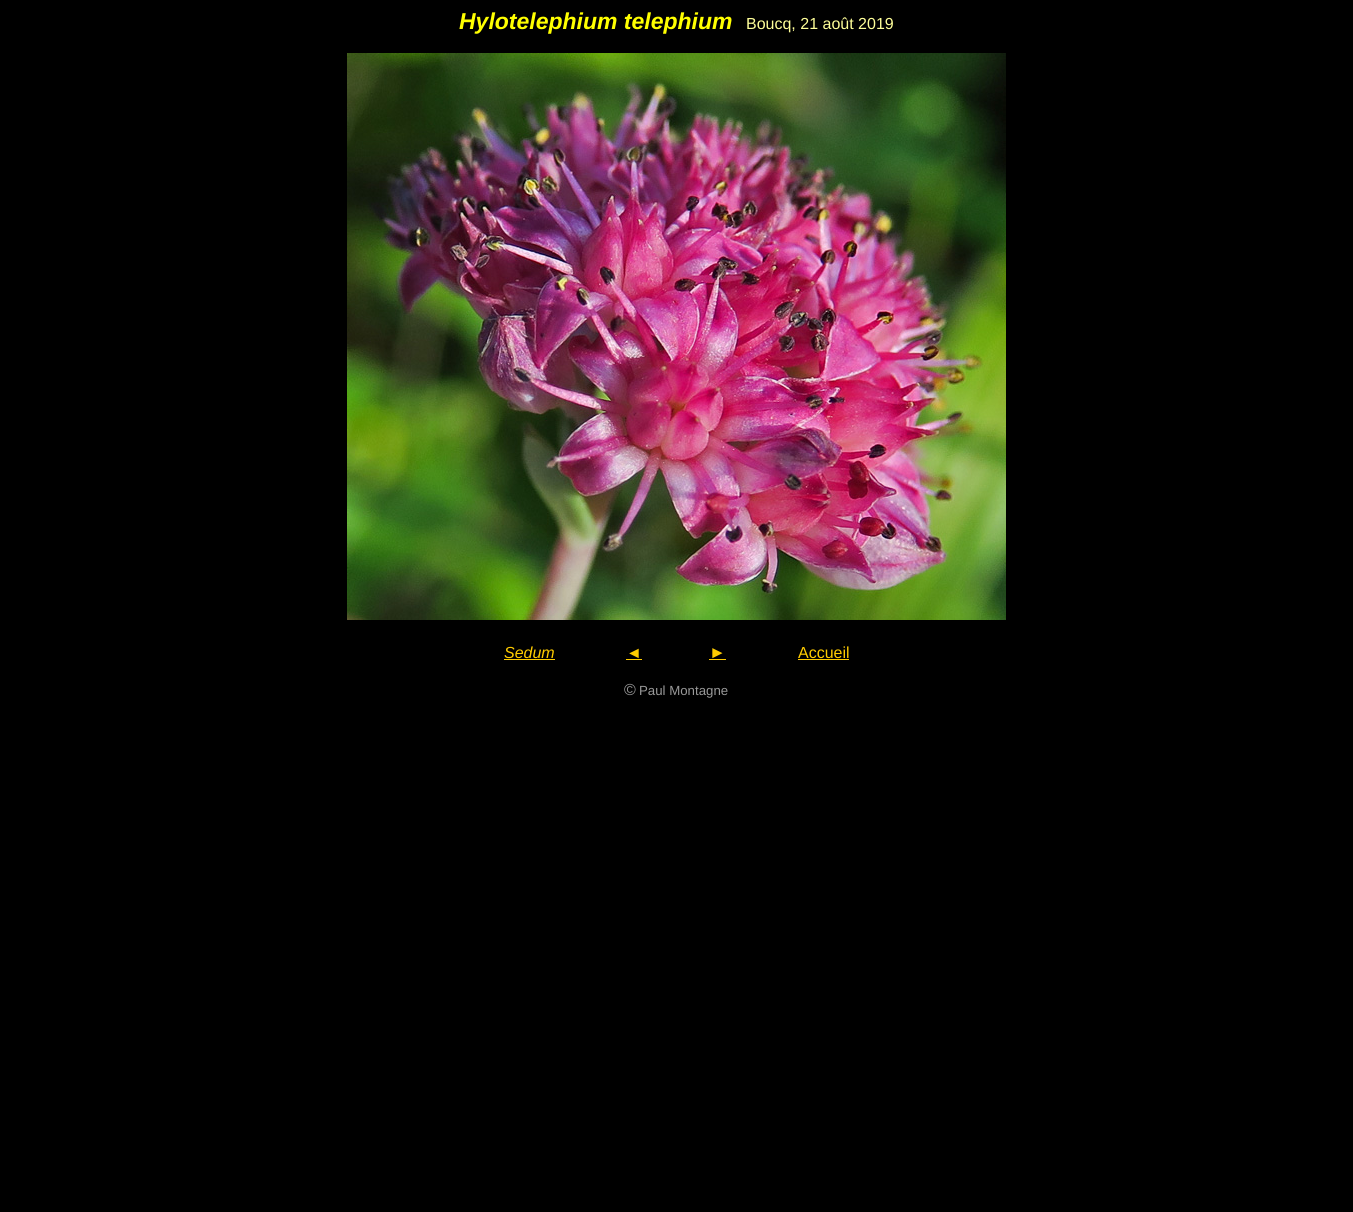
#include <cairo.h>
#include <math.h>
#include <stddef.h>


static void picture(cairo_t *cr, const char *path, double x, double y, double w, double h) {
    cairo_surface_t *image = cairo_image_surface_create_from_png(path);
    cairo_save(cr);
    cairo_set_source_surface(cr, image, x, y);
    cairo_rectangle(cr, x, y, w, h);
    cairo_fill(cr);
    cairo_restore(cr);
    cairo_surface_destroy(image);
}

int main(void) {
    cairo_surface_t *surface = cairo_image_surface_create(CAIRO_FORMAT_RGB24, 1353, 1212);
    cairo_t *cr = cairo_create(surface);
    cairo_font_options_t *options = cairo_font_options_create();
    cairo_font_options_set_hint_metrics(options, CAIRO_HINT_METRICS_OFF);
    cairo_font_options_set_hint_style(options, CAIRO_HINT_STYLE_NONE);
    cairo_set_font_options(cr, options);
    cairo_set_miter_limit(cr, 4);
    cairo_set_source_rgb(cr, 0, 0, 0);
    cairo_paint(cr);
    cairo_select_font_face(cr, "Liberation Sans", CAIRO_FONT_SLANT_ITALIC, CAIRO_FONT_WEIGHT_BOLD);
    cairo_set_font_size(cr, 23);
    cairo_set_source_rgb(cr, 1, 1, 0);
    cairo_move_to(cr, 459, 29);
    cairo_show_text(cr, "Hylotelephium telephium");
    cairo_select_font_face(cr, "Liberation Sans", CAIRO_FONT_SLANT_NORMAL, CAIRO_FONT_WEIGHT_NORMAL);
    cairo_set_font_size(cr, 16);
    cairo_set_source_rgb(cr, 1, 1, 0.6);
    cairo_move_to(cr, 746, 29);
    cairo_show_text(cr, "Boucq, 21 août 2019");
    picture(cr, "img1.png", 347, 53, 659, 567);
    cairo_select_font_face(cr, "Liberation Sans", CAIRO_FONT_SLANT_ITALIC, CAIRO_FONT_WEIGHT_NORMAL);
    cairo_set_source_rgb(cr, 1, 0.8, 0);
    cairo_move_to(cr, 504, 658);
    cairo_show_text(cr, "Sedum");
    cairo_rectangle(cr, 504, 659, 51, 1);
    cairo_fill(cr);
    cairo_select_font_face(cr, "Liberation Sans", CAIRO_FONT_SLANT_NORMAL, CAIRO_FONT_WEIGHT_NORMAL);
    cairo_move_to(cr, 626, 658);
    cairo_show_text(cr, "◄");
    cairo_rectangle(cr, 626, 659, 16, 1);
    cairo_fill(cr);
    cairo_set_font_size(cr, 17);
    cairo_move_to(cr, 709, 658);
    cairo_show_text(cr, "►");
    cairo_rectangle(cr, 709, 659, 17, 1);
    cairo_fill(cr);
    cairo_set_font_size(cr, 16);
    cairo_move_to(cr, 798, 658);
    cairo_show_text(cr, "Accueil");
    cairo_rectangle(cr, 798, 659, 51, 1);
    cairo_fill(cr);
    cairo_set_source_rgb(cr, 0.6, 0.6, 0.6);
    cairo_move_to(cr, 624, 695);
    cairo_show_text(cr, "©");
    cairo_set_font_size(cr, 13.25);
    cairo_move_to(cr, 639, 695);
    cairo_show_text(cr, "Paul Montagne");
    cairo_surface_write_to_png(surface, "page.png");
    cairo_font_options_destroy(options);
    cairo_destroy(cr);
    cairo_surface_destroy(surface);
    return 0;
}
